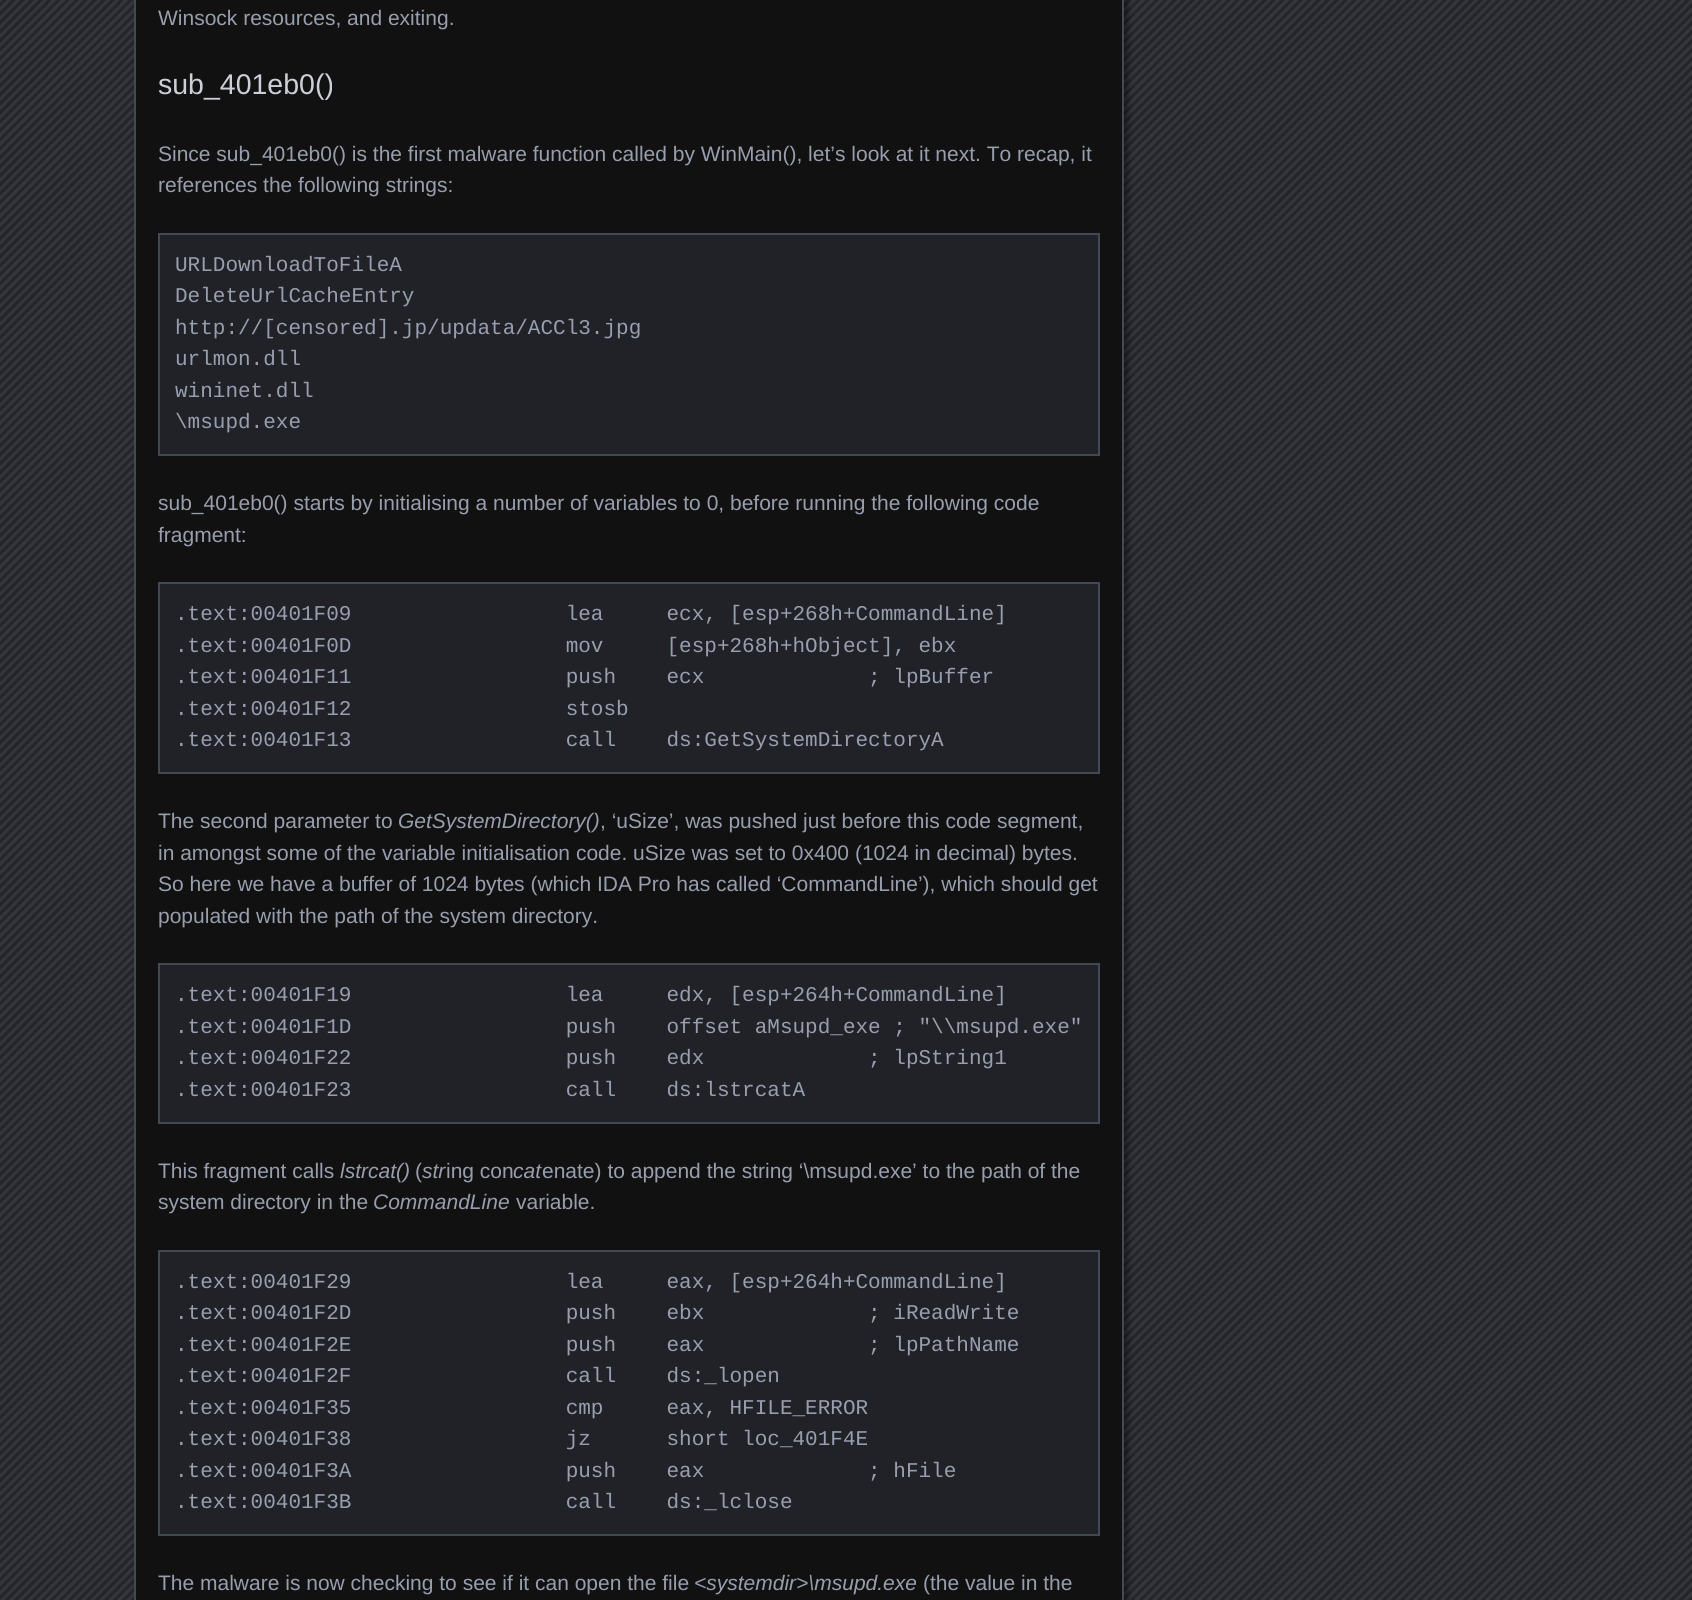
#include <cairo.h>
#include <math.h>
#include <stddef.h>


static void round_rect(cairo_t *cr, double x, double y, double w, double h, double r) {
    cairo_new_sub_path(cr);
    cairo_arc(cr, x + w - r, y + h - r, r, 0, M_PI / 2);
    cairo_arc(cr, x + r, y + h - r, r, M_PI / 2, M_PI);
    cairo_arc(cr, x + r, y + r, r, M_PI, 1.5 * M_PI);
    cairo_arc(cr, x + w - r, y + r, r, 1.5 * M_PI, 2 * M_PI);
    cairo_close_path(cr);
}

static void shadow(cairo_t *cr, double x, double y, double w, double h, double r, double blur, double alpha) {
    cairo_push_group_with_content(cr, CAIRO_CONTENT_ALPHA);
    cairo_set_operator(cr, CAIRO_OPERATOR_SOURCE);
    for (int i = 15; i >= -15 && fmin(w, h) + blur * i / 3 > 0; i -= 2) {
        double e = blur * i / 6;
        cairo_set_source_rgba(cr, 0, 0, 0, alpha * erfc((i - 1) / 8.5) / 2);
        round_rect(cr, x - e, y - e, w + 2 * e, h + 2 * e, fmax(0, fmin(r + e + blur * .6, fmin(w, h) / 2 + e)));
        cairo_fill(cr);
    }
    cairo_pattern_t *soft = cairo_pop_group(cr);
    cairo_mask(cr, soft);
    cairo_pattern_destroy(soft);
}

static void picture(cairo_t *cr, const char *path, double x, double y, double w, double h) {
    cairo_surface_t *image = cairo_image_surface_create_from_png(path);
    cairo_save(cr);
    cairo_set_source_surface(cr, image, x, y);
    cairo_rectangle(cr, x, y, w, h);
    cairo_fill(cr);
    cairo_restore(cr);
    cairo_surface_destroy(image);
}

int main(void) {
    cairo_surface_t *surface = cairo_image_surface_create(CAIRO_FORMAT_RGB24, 1692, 1600);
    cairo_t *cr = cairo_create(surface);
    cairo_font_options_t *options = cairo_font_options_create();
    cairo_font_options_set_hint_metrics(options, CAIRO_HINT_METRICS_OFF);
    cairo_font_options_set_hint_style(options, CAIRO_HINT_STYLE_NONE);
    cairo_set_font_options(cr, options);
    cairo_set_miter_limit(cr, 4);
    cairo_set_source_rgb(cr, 0.125, 0.133, 0.157);
    cairo_paint(cr);
    picture(cr, "img1.png", 0, 0, 1692, 1600);
    cairo_set_source_rgb(cr, 0, 0, 0);
    shadow(cr, 138, -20, 990, 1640, 11, 3, 0.45);
    cairo_set_source_rgb(cr, 0.067, 0.067, 0.067);
    cairo_rectangle(cr, 135, -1, 988, 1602);
    cairo_fill_preserve(cr);
    cairo_set_source_rgb(cr, 0.267, 0.282, 0.333);
    cairo_stroke(cr);
    cairo_select_font_face(cr, "Liberation Sans", CAIRO_FONT_SLANT_NORMAL, CAIRO_FONT_WEIGHT_NORMAL);
    cairo_set_font_size(cr, 21);
    cairo_set_source_rgb(cr, 0.596, 0.62, 0.682);
    cairo_move_to(cr, 158, 25);
    cairo_show_text(cr, "Winsock resources, and exiting.");
    cairo_set_font_size(cr, 28.5);
    cairo_set_source_rgb(cr, 0.8, 0.812, 0.843);
    cairo_move_to(cr, 158, 94);
    cairo_show_text(cr, "sub_401eb0()");
    cairo_set_font_size(cr, 21);
    cairo_set_source_rgb(cr, 0.596, 0.62, 0.682);
    cairo_move_to(cr, 158, 161);
    cairo_show_text(cr, "Since sub_401eb0() is the first malware function called by WinMain(), let’s look at it next. To recap, it");
    cairo_move_to(cr, 158, 192);
    cairo_show_text(cr, "references the following strings:");
    cairo_set_source_rgb(cr, 0.125, 0.133, 0.157);
    cairo_rectangle(cr, 159, 234, 940, 221);
    cairo_fill_preserve(cr);
    cairo_set_source_rgb(cr, 0.267, 0.282, 0.333);
    cairo_stroke(cr);
    cairo_select_font_face(cr, "Liberation Mono", CAIRO_FONT_SLANT_NORMAL, CAIRO_FONT_WEIGHT_NORMAL);
    cairo_set_source_rgb(cr, 0.596, 0.62, 0.682);
    cairo_move_to(cr, 175, 271);
    cairo_show_text(cr, "URLDownloadToFileA");
    cairo_move_to(cr, 175, 302);
    cairo_show_text(cr, "DeleteUrlCacheEntry");
    cairo_move_to(cr, 175, 334);
    cairo_show_text(cr, "http://[censored].jp/updata/ACCl3.jpg");
    cairo_move_to(cr, 175, 365);
    cairo_show_text(cr, "urlmon.dll");
    cairo_move_to(cr, 175, 397);
    cairo_show_text(cr, "wininet.dll");
    cairo_move_to(cr, 175, 428);
    cairo_show_text(cr, "\\msupd.exe");
    cairo_select_font_face(cr, "Liberation Sans", CAIRO_FONT_SLANT_NORMAL, CAIRO_FONT_WEIGHT_NORMAL);
    cairo_move_to(cr, 158, 510);
    cairo_show_text(cr, "sub_401eb0() starts by initialising a number of variables to 0, before running the following code");
    cairo_move_to(cr, 158, 542);
    cairo_show_text(cr, "fragment:");
    cairo_set_source_rgb(cr, 0.125, 0.133, 0.157);
    cairo_rectangle(cr, 159, 583, 940, 190);
    cairo_fill_preserve(cr);
    cairo_set_source_rgb(cr, 0.267, 0.282, 0.333);
    cairo_stroke(cr);
    cairo_select_font_face(cr, "Liberation Mono", CAIRO_FONT_SLANT_NORMAL, CAIRO_FONT_WEIGHT_NORMAL);
    cairo_set_source_rgb(cr, 0.596, 0.62, 0.682);
    cairo_move_to(cr, 175, 620);
    cairo_show_text(cr, ".text:00401F09                 lea     ecx, [esp+268h+CommandLine]");
    cairo_move_to(cr, 175, 652);
    cairo_show_text(cr, ".text:00401F0D                 mov     [esp+268h+hObject], ebx");
    cairo_move_to(cr, 175, 683);
    cairo_show_text(cr, ".text:00401F11                 push    ecx             ; lpBuffer");
    cairo_move_to(cr, 175, 715);
    cairo_show_text(cr, ".text:00401F12                 stosb");
    cairo_move_to(cr, 175, 746);
    cairo_show_text(cr, ".text:00401F13                 call    ds:GetSystemDirectoryA");
    cairo_select_font_face(cr, "Liberation Sans", CAIRO_FONT_SLANT_NORMAL, CAIRO_FONT_WEIGHT_NORMAL);
    cairo_move_to(cr, 158, 828);
    cairo_show_text(cr, "The second parameter to");
    cairo_select_font_face(cr, "Liberation Sans", CAIRO_FONT_SLANT_ITALIC, CAIRO_FONT_WEIGHT_NORMAL);
    cairo_move_to(cr, 398, 828);
    cairo_show_text(cr, "GetSystemDirectory()");
    cairo_select_font_face(cr, "Liberation Sans", CAIRO_FONT_SLANT_NORMAL, CAIRO_FONT_WEIGHT_NORMAL);
    cairo_move_to(cr, 600, 828);
    cairo_show_text(cr, ", ‘uSize’, was pushed just before this code segment,");
    cairo_move_to(cr, 158, 860);
    cairo_show_text(cr, "in amongst some of the variable initialisation code. uSize was set to 0x400 (1024 in decimal) bytes.");
    cairo_move_to(cr, 158, 891);
    cairo_show_text(cr, "So here we have a buffer of 1024 bytes (which IDA Pro has called ‘CommandLine’), which should get");
    cairo_move_to(cr, 158, 923);
    cairo_show_text(cr, "populated with the path of the system directory.");
    cairo_set_source_rgb(cr, 0.125, 0.133, 0.157);
    cairo_rectangle(cr, 159, 964, 940, 159);
    cairo_fill_preserve(cr);
    cairo_set_source_rgb(cr, 0.267, 0.282, 0.333);
    cairo_stroke(cr);
    cairo_select_font_face(cr, "Liberation Mono", CAIRO_FONT_SLANT_NORMAL, CAIRO_FONT_WEIGHT_NORMAL);
    cairo_set_source_rgb(cr, 0.596, 0.62, 0.682);
    cairo_move_to(cr, 175, 1001);
    cairo_show_text(cr, ".text:00401F19                 lea     edx, [esp+264h+CommandLine]");
    cairo_move_to(cr, 175, 1033);
    cairo_show_text(cr, ".text:00401F1D                 push    offset aMsupd_exe ; \"\\\\msupd.exe\"");
    cairo_move_to(cr, 175, 1064);
    cairo_show_text(cr, ".text:00401F22                 push    edx             ; lpString1");
    cairo_move_to(cr, 175, 1096);
    cairo_show_text(cr, ".text:00401F23                 call    ds:lstrcatA");
    cairo_select_font_face(cr, "Liberation Sans", CAIRO_FONT_SLANT_NORMAL, CAIRO_FONT_WEIGHT_NORMAL);
    cairo_move_to(cr, 158, 1178);
    cairo_show_text(cr, "This fragment calls");
    cairo_select_font_face(cr, "Liberation Sans", CAIRO_FONT_SLANT_ITALIC, CAIRO_FONT_WEIGHT_NORMAL);
    cairo_move_to(cr, 340, 1178);
    cairo_show_text(cr, "lstrcat()");
    cairo_select_font_face(cr, "Liberation Sans", CAIRO_FONT_SLANT_NORMAL, CAIRO_FONT_WEIGHT_NORMAL);
    cairo_move_to(cr, 415, 1178);
    cairo_show_text(cr, "(");
    cairo_select_font_face(cr, "Liberation Sans", CAIRO_FONT_SLANT_ITALIC, CAIRO_FONT_WEIGHT_NORMAL);
    cairo_move_to(cr, 422, 1178);
    cairo_show_text(cr, "str");
    cairo_select_font_face(cr, "Liberation Sans", CAIRO_FONT_SLANT_NORMAL, CAIRO_FONT_WEIGHT_NORMAL);
    cairo_move_to(cr, 446, 1178);
    cairo_show_text(cr, "ing con");
    cairo_select_font_face(cr, "Liberation Sans", CAIRO_FONT_SLANT_ITALIC, CAIRO_FONT_WEIGHT_NORMAL);
    cairo_move_to(cr, 513, 1178);
    cairo_show_text(cr, "cat");
    cairo_select_font_face(cr, "Liberation Sans", CAIRO_FONT_SLANT_NORMAL, CAIRO_FONT_WEIGHT_NORMAL);
    cairo_move_to(cr, 542, 1178);
    cairo_show_text(cr, "enate) to append the string ‘\\msupd.exe’ to the path of the");
    cairo_move_to(cr, 158, 1209);
    cairo_show_text(cr, "system directory in the");
    cairo_select_font_face(cr, "Liberation Sans", CAIRO_FONT_SLANT_ITALIC, CAIRO_FONT_WEIGHT_NORMAL);
    cairo_move_to(cr, 373, 1209);
    cairo_show_text(cr, "CommandLine");
    cairo_select_font_face(cr, "Liberation Sans", CAIRO_FONT_SLANT_NORMAL, CAIRO_FONT_WEIGHT_NORMAL);
    cairo_move_to(cr, 516, 1209);
    cairo_show_text(cr, "variable.");
    cairo_set_source_rgb(cr, 0.125, 0.133, 0.157);
    cairo_rectangle(cr, 159, 1251, 940, 284);
    cairo_fill_preserve(cr);
    cairo_set_source_rgb(cr, 0.267, 0.282, 0.333);
    cairo_stroke(cr);
    cairo_select_font_face(cr, "Liberation Mono", CAIRO_FONT_SLANT_NORMAL, CAIRO_FONT_WEIGHT_NORMAL);
    cairo_set_source_rgb(cr, 0.596, 0.62, 0.682);
    cairo_move_to(cr, 175, 1288);
    cairo_show_text(cr, ".text:00401F29                 lea     eax, [esp+264h+CommandLine]");
    cairo_move_to(cr, 175, 1319);
    cairo_show_text(cr, ".text:00401F2D                 push    ebx             ; iReadWrite");
    cairo_move_to(cr, 175, 1351);
    cairo_show_text(cr, ".text:00401F2E                 push    eax             ; lpPathName");
    cairo_move_to(cr, 175, 1382);
    cairo_show_text(cr, ".text:00401F2F                 call    ds:_lopen");
    cairo_move_to(cr, 175, 1414);
    cairo_show_text(cr, ".text:00401F35                 cmp     eax, HFILE_ERROR");
    cairo_move_to(cr, 175, 1445);
    cairo_show_text(cr, ".text:00401F38                 jz      short loc_401F4E");
    cairo_move_to(cr, 175, 1477);
    cairo_show_text(cr, ".text:00401F3A                 push    eax             ; hFile");
    cairo_move_to(cr, 175, 1508);
    cairo_show_text(cr, ".text:00401F3B                 call    ds:_lclose");
    cairo_select_font_face(cr, "Liberation Sans", CAIRO_FONT_SLANT_NORMAL, CAIRO_FONT_WEIGHT_NORMAL);
    cairo_move_to(cr, 158, 1590);
    cairo_show_text(cr, "The malware is now checking to see if it can open the file");
    cairo_select_font_face(cr, "Liberation Sans", CAIRO_FONT_SLANT_ITALIC, CAIRO_FONT_WEIGHT_NORMAL);
    cairo_move_to(cr, 694, 1590);
    cairo_show_text(cr, "<systemdir>\\msupd.exe");
    cairo_select_font_face(cr, "Liberation Sans", CAIRO_FONT_SLANT_NORMAL, CAIRO_FONT_WEIGHT_NORMAL);
    cairo_move_to(cr, 923, 1590);
    cairo_show_text(cr, "(the value in the");
    cairo_surface_write_to_png(surface, "page.png");
    cairo_font_options_destroy(options);
    cairo_destroy(cr);
    cairo_surface_destroy(surface);
    return 0;
}
